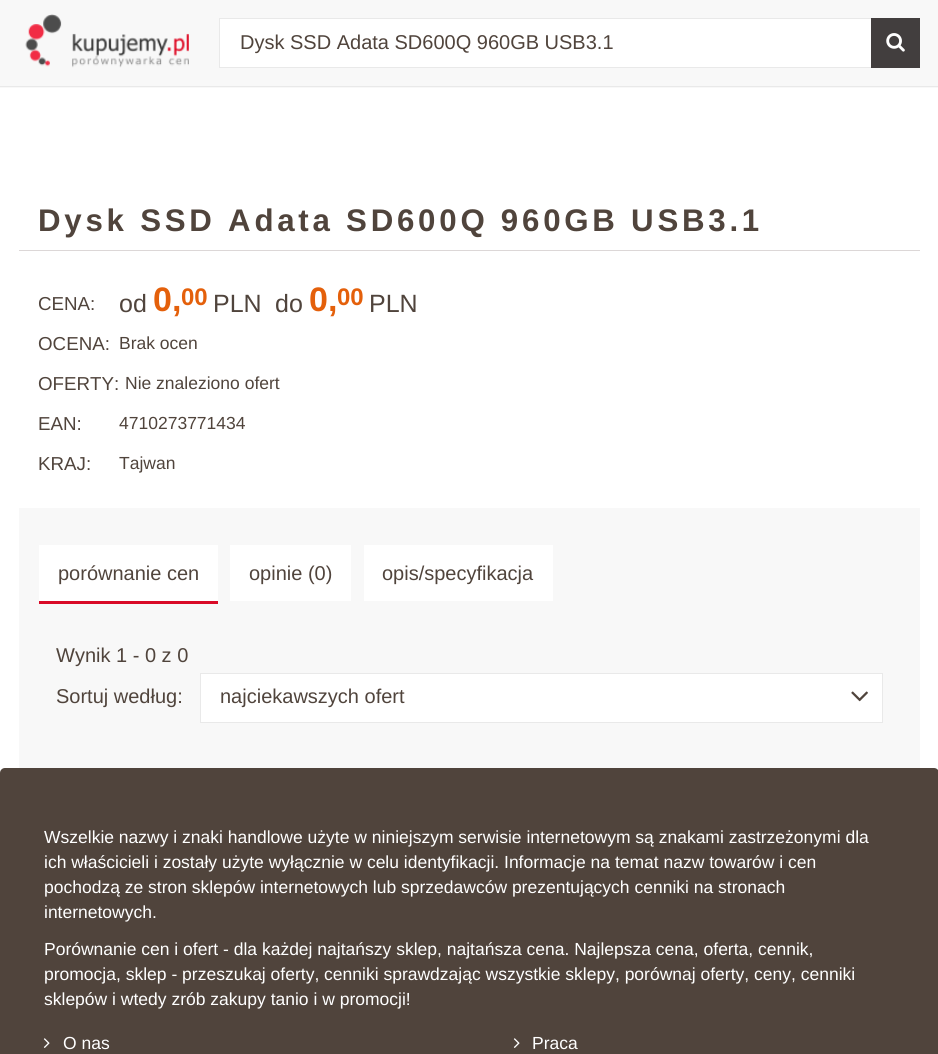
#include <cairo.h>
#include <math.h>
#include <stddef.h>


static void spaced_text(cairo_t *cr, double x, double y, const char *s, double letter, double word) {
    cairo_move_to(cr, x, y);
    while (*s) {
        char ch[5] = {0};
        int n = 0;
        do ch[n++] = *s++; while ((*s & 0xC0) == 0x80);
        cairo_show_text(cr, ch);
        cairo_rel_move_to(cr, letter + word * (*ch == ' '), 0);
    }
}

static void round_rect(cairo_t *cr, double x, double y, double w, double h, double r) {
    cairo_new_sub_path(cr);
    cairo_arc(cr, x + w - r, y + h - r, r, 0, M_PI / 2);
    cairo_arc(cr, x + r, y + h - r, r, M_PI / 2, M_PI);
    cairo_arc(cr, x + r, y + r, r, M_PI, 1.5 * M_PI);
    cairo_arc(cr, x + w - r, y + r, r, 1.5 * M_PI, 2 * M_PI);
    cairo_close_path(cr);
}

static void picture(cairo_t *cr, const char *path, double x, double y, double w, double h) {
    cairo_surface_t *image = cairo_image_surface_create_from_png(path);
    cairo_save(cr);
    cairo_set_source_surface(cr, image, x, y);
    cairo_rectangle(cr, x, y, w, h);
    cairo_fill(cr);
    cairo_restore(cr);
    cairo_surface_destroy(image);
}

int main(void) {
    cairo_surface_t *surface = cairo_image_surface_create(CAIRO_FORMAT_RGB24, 938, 1054);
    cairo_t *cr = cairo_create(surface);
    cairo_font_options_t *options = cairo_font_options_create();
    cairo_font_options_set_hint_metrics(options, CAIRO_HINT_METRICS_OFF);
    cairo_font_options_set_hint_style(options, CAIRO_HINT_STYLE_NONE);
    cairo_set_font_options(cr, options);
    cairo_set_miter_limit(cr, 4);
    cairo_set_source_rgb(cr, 1, 1, 1);
    cairo_paint(cr);
    cairo_set_source_rgb(cr, 0.969, 0.969, 0.969);
    cairo_rectangle(cr, 0, 0, 938, 88);
    cairo_fill(cr);
    cairo_set_source_rgb(cr, 0.914, 0.914, 0.914);
    cairo_rectangle(cr, 0, 86, 938, 1);
    cairo_fill(cr);
    picture(cr, "img1.png", 25, 14, 164, 54);
    cairo_set_source_rgb(cr, 1, 1, 1);
    cairo_rectangle(cr, 220, 19, 651, 48);
    cairo_fill(cr);
    cairo_rectangle(cr, 219.5, 18.5, 658, 49);
    cairo_set_source_rgb(cr, 0.914, 0.914, 0.914);
    cairo_set_line_width(cr, 1);
    cairo_stroke(cr);
    cairo_select_font_face(cr, "Liberation Sans", CAIRO_FONT_SLANT_NORMAL, CAIRO_FONT_WEIGHT_NORMAL);
    cairo_set_font_size(cr, 20);
    cairo_set_source_rgb(cr, 0.314, 0.267, 0.235);
    cairo_move_to(cr, 240, 49);
    cairo_show_text(cr, "Dysk SSD Adata SD600Q 960GB USB3.1");
    cairo_set_source_rgb(cr, 0.259, 0.243, 0.243);
    cairo_rectangle(cr, 871, 18, 49, 50);
    cairo_fill(cr);
    picture(cr, "img2.png", 886, 33, 19, 19);
    cairo_set_source_rgb(cr, 0.863, 0.843, 0.843);
    cairo_rectangle(cr, 19, 250, 901, 1);
    cairo_fill(cr);
    cairo_select_font_face(cr, "Liberation Sans", CAIRO_FONT_SLANT_NORMAL, CAIRO_FONT_WEIGHT_BOLD);
    cairo_set_font_size(cr, 31.25);
    cairo_set_source_rgb(cr, 0.314, 0.267, 0.235);
    spaced_text(cr, 38, 231, "Dysk SSD Adata SD600Q 960GB USB3.1", 3.75, 0);
    cairo_select_font_face(cr, "Liberation Sans", CAIRO_FONT_SLANT_NORMAL, CAIRO_FONT_WEIGHT_NORMAL);
    cairo_set_font_size(cr, 18.75);
    cairo_move_to(cr, 38, 310);
    cairo_show_text(cr, "CENA:");
    cairo_set_font_size(cr, 25);
    cairo_move_to(cr, 119, 312);
    cairo_show_text(cr, "od");
    cairo_select_font_face(cr, "Liberation Sans", CAIRO_FONT_SLANT_NORMAL, CAIRO_FONT_WEIGHT_BOLD);
    cairo_set_font_size(cr, 34);
    cairo_set_source_rgb(cr, 0.894, 0.376, 0.043);
    cairo_move_to(cr, 153, 311);
    cairo_show_text(cr, "0,");
    cairo_set_font_size(cr, 24);
    cairo_move_to(cr, 181, 305);
    cairo_show_text(cr, "00");
    cairo_select_font_face(cr, "Liberation Sans", CAIRO_FONT_SLANT_NORMAL, CAIRO_FONT_WEIGHT_NORMAL);
    cairo_set_font_size(cr, 25);
    cairo_set_source_rgb(cr, 0.314, 0.267, 0.235);
    cairo_move_to(cr, 213, 312);
    cairo_show_text(cr, "PLN");
    cairo_move_to(cr, 275, 312);
    cairo_show_text(cr, "do");
    cairo_select_font_face(cr, "Liberation Sans", CAIRO_FONT_SLANT_NORMAL, CAIRO_FONT_WEIGHT_BOLD);
    cairo_set_font_size(cr, 34);
    cairo_set_source_rgb(cr, 0.894, 0.376, 0.043);
    cairo_move_to(cr, 309, 311);
    cairo_show_text(cr, "0,");
    cairo_set_font_size(cr, 24);
    cairo_move_to(cr, 337, 305);
    cairo_show_text(cr, "00");
    cairo_select_font_face(cr, "Liberation Sans", CAIRO_FONT_SLANT_NORMAL, CAIRO_FONT_WEIGHT_NORMAL);
    cairo_set_font_size(cr, 25);
    cairo_set_source_rgb(cr, 0.314, 0.267, 0.235);
    cairo_move_to(cr, 369, 312);
    cairo_show_text(cr, "PLN");
    cairo_set_font_size(cr, 18.75);
    cairo_move_to(cr, 38, 350);
    cairo_show_text(cr, "OCENA:");
    cairo_set_font_size(cr, 17.5);
    cairo_move_to(cr, 119, 349);
    cairo_show_text(cr, "Brak ocen");
    cairo_set_font_size(cr, 18.75);
    cairo_move_to(cr, 38, 390);
    cairo_show_text(cr, "OFERTY:");
    cairo_set_font_size(cr, 17.5);
    cairo_move_to(cr, 125, 389);
    cairo_show_text(cr, "Nie znaleziono ofert");
    cairo_set_font_size(cr, 18.75);
    cairo_move_to(cr, 38, 430);
    cairo_show_text(cr, "EAN:");
    cairo_set_font_size(cr, 17.5);
    cairo_move_to(cr, 119, 429);
    cairo_show_text(cr, "4710273771434");
    cairo_set_font_size(cr, 18.75);
    cairo_move_to(cr, 38, 470);
    cairo_show_text(cr, "KRAJ:");
    cairo_set_font_size(cr, 17.5);
    cairo_move_to(cr, 119, 469);
    cairo_show_text(cr, "Tajwan");
    cairo_set_source_rgb(cr, 0.969, 0.969, 0.969);
    cairo_rectangle(cr, 19, 508, 901, 260);
    cairo_fill(cr);
    cairo_set_source_rgb(cr, 1, 1, 1);
    cairo_rectangle(cr, 39, 545, 179, 56);
    cairo_fill(cr);
    cairo_set_source_rgb(cr, 0.851, 0.043, 0.153);
    cairo_rectangle(cr, 39, 601, 179, 3);
    cairo_fill(cr);
    cairo_set_font_size(cr, 20);
    cairo_set_source_rgb(cr, 0.314, 0.267, 0.235);
    cairo_move_to(cr, 58, 580);
    cairo_show_text(cr, "porównanie cen");
    cairo_set_source_rgb(cr, 1, 1, 1);
    cairo_rectangle(cr, 230, 545, 121, 56);
    cairo_fill(cr);
    cairo_set_source_rgb(cr, 0.314, 0.267, 0.235);
    cairo_move_to(cr, 249, 580);
    cairo_show_text(cr, "opinie (0)");
    cairo_set_source_rgb(cr, 1, 1, 1);
    cairo_rectangle(cr, 364, 545, 189, 56);
    cairo_fill(cr);
    cairo_set_source_rgb(cr, 0.314, 0.267, 0.235);
    cairo_move_to(cr, 382, 580);
    cairo_show_text(cr, "opis/specyfikacja");
    cairo_move_to(cr, 56, 662);
    cairo_show_text(cr, "Wynik 1 - 0 z 0");
    cairo_move_to(cr, 56, 703);
    cairo_show_text(cr, "Sortuj według:");
    cairo_set_source_rgb(cr, 1, 1, 1);
    cairo_rectangle(cr, 200.5, 673.5, 682, 49);
    cairo_fill_preserve(cr);
    cairo_set_source_rgb(cr, 0.914, 0.914, 0.914);
    cairo_stroke(cr);
    cairo_set_source_rgb(cr, 0.314, 0.267, 0.235);
    cairo_move_to(cr, 220, 703);
    cairo_show_text(cr, "najciekawszych ofert");
    picture(cr, "img3.png", 851, 691, 17, 11);
    round_rect(cr, 0, 768, 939, 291, 5);
    cairo_fill(cr);
    cairo_set_font_size(cr, 17.5);
    cairo_set_source_rgb(cr, 1, 1, 1);
    cairo_move_to(cr, 44, 843);
    cairo_show_text(cr, "Wszelkie nazwy i znaki handlowe użyte w niniejszym serwisie internetowym są znakami zastrzeżonymi dla");
    cairo_move_to(cr, 44, 868);
    cairo_show_text(cr, "ich właścicieli i zostały użyte wyłącznie w celu identyfikacji. Informacje na temat nazw towarów i cen");
    cairo_move_to(cr, 44, 893);
    cairo_show_text(cr, "pochodzą ze stron sklepów internetowych lub sprzedawców prezentujących cenniki na stronach");
    cairo_move_to(cr, 44, 918);
    cairo_show_text(cr, "internetowych.");
    cairo_move_to(cr, 44, 955);
    cairo_show_text(cr, "Porównanie cen i ofert - dla każdej najtańszy sklep, najtańsza cena. Najlepsza cena, oferta, cennik,");
    cairo_move_to(cr, 44, 980);
    cairo_show_text(cr, "promocja, sklep - przeszukaj oferty, cenniki sprawdzając wszystkie sklepy, porównaj oferty, ceny, cenniki");
    cairo_move_to(cr, 44, 1005);
    cairo_show_text(cr, "sklepów i wtedy zrób zakupy tanio i w promocji!");
    picture(cr, "img4.png", 43, 1038, 7, 10);
    cairo_move_to(cr, 63, 1049);
    cairo_show_text(cr, "O nas");
    picture(cr, "img4.png", 513, 1038, 7, 10);
    cairo_move_to(cr, 532, 1049);
    cairo_show_text(cr, "Praca");
    cairo_surface_write_to_png(surface, "page.png");
    cairo_font_options_destroy(options);
    cairo_destroy(cr);
    cairo_surface_destroy(surface);
    return 0;
}
